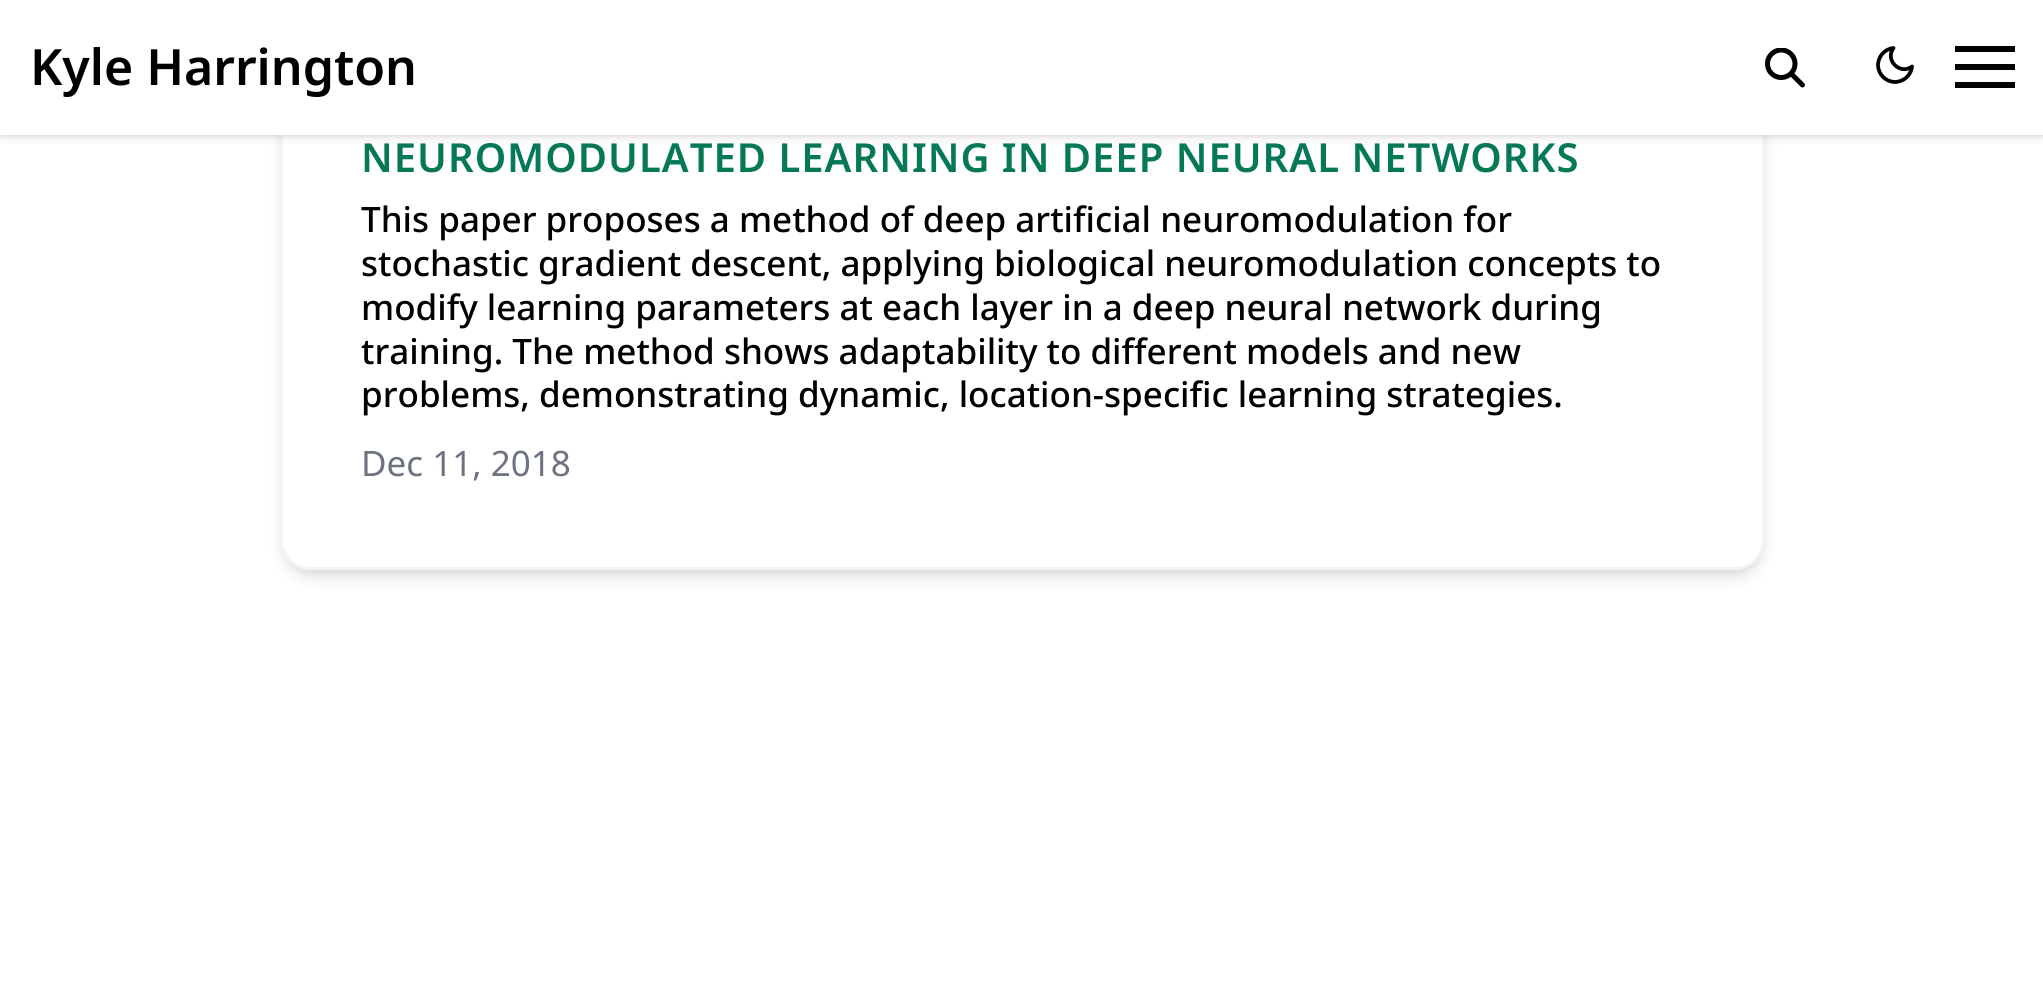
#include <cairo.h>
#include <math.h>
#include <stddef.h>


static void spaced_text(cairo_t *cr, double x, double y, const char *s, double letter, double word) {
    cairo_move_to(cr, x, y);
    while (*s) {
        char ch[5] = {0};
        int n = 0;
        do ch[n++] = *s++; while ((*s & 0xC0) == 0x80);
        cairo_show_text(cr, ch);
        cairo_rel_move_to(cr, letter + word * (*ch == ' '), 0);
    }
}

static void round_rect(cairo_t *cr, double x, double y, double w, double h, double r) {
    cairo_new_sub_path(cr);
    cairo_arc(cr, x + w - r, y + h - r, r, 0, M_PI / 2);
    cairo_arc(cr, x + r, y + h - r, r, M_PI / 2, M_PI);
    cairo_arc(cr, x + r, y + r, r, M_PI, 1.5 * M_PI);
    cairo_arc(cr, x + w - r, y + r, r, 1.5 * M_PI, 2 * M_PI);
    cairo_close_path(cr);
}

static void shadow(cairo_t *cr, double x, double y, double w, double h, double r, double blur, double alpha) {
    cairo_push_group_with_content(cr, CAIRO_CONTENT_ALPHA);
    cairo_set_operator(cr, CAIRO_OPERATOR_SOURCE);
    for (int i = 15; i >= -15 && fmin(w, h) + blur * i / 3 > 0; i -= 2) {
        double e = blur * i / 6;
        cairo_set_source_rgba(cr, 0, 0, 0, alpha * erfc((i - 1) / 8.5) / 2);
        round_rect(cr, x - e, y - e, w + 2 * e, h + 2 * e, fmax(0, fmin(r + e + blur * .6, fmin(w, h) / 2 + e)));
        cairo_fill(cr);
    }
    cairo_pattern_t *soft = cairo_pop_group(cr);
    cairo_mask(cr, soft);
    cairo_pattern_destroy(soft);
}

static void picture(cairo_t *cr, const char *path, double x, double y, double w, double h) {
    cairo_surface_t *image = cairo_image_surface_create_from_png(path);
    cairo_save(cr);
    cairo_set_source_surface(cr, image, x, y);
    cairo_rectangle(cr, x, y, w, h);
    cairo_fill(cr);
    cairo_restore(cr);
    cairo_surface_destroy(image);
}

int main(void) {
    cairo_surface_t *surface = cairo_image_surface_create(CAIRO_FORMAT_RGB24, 2043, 990);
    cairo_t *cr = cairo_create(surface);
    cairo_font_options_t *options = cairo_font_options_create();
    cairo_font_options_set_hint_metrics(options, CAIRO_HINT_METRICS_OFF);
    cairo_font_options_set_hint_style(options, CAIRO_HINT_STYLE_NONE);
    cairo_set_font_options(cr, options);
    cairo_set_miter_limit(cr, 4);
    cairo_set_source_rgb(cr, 1, 1, 1);
    cairo_paint(cr);
    cairo_set_source_rgb(cr, 0, 0, 0);
    shadow(cr, 285, 55, 1475, 515, 25, 5, 0.1);
    shadow(cr, 283, 58, 1480, 520, 28, 7.5, 0.1);
    cairo_set_source_rgb(cr, 1, 1, 1);
    round_rect(cr, 281.5, 46.5, 1482, 522, 28.5);
    cairo_fill_preserve(cr);
    cairo_set_source_rgb(cr, 0.953, 0.957, 0.965);
    cairo_set_line_width(cr, 3);
    cairo_stroke(cr);
    cairo_set_source_rgb(cr, 0, 0, 0);
    shadow(cr, 3, 5, 2040, 130, 0, 2.5, 0.1);
    shadow(cr, 0, 3, 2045, 135, 0, 4, 0.1);
    cairo_set_source_rgb(cr, 1, 1, 1);
    cairo_rectangle(cr, 0, 0, 2043, 135);
    cairo_fill(cr);
    cairo_select_font_face(cr, "Noto Sans SemiBold", CAIRO_FONT_SLANT_NORMAL, CAIRO_FONT_WEIGHT_NORMAL);
    cairo_set_font_size(cr, 50);
    cairo_set_source_rgb(cr, 0, 0, 0);
    cairo_move_to(cr, 30, 85);
    cairo_show_text(cr, "Kyle Harrington");
    picture(cr, "img1.png", 1765, 48, 40, 40);
    cairo_new_path(cr);
    cairo_move_to(cr, 1912, 66.5);
    cairo_curve_to(cr, 1911, 75.5, 1903.5, 82, 1894.5, 82);
    cairo_curve_to(cr, 1885.5, 81.5, 1878.5, 74.5, 1878, 65.5);
    cairo_curve_to(cr, 1878, 56.5, 1884.5, 49, 1893.5, 48);
    cairo_curve_to(cr, 1884.5, 60, 1900, 75.5, 1912, 66.5);
    cairo_close_path(cr);
    cairo_set_line_width(cr, 3.8);
    cairo_set_line_cap(cr, CAIRO_LINE_CAP_ROUND);
    cairo_set_line_join(cr, CAIRO_LINE_JOIN_ROUND);
    cairo_stroke(cr);
    cairo_new_path(cr);
    cairo_move_to(cr, 1955, 46);
    cairo_line_to(cr, 2015, 46);
    cairo_line_to(cr, 2015, 52);
    cairo_line_to(cr, 1955, 52);
    cairo_close_path(cr);
    cairo_move_to(cr, 1955, 64);
    cairo_line_to(cr, 2015, 64);
    cairo_line_to(cr, 2015, 70);
    cairo_line_to(cr, 1955, 70);
    cairo_close_path(cr);
    cairo_move_to(cr, 1955, 82);
    cairo_line_to(cr, 2015, 82);
    cairo_line_to(cr, 2015, 88);
    cairo_line_to(cr, 1955, 88);
    cairo_line_to(cr, 1955, 38);
    cairo_close_path(cr);
    cairo_fill(cr);
    cairo_set_font_size(cr, 40);
    cairo_set_source_rgb(cr, 0.016, 0.471, 0.341);
    spaced_text(cr, 361, 172, "NEUROMODULATED LEARNING IN DEEP NEURAL NETWORKS", 1, 0);
    cairo_select_font_face(cr, "Noto Sans Medium", CAIRO_FONT_SLANT_NORMAL, CAIRO_FONT_WEIGHT_NORMAL);
    cairo_set_font_size(cr, 35);
    cairo_set_source_rgb(cr, 0, 0, 0);
    cairo_move_to(cr, 361, 232);
    cairo_show_text(cr, "This paper proposes a method of deep artificial neuromodulation for");
    cairo_move_to(cr, 361, 276);
    cairo_show_text(cr, "stochastic gradient descent, applying biological neuromodulation concepts to");
    cairo_move_to(cr, 361, 320);
    cairo_show_text(cr, "modify learning parameters at each layer in a deep neural network during");
    cairo_move_to(cr, 361, 364);
    cairo_show_text(cr, "training. The method shows adaptability to different models and new");
    cairo_move_to(cr, 361, 407);
    cairo_show_text(cr, "problems, demonstrating dynamic, location-specific learning strategies.");
    cairo_select_font_face(cr, "Noto Sans", CAIRO_FONT_SLANT_NORMAL, CAIRO_FONT_WEIGHT_NORMAL);
    cairo_set_source_rgb(cr, 0.42, 0.447, 0.502);
    cairo_move_to(cr, 361, 476);
    cairo_show_text(cr, "Dec 11, 2018");
    cairo_surface_write_to_png(surface, "page.png");
    cairo_font_options_destroy(options);
    cairo_destroy(cr);
    cairo_surface_destroy(surface);
    return 0;
}
